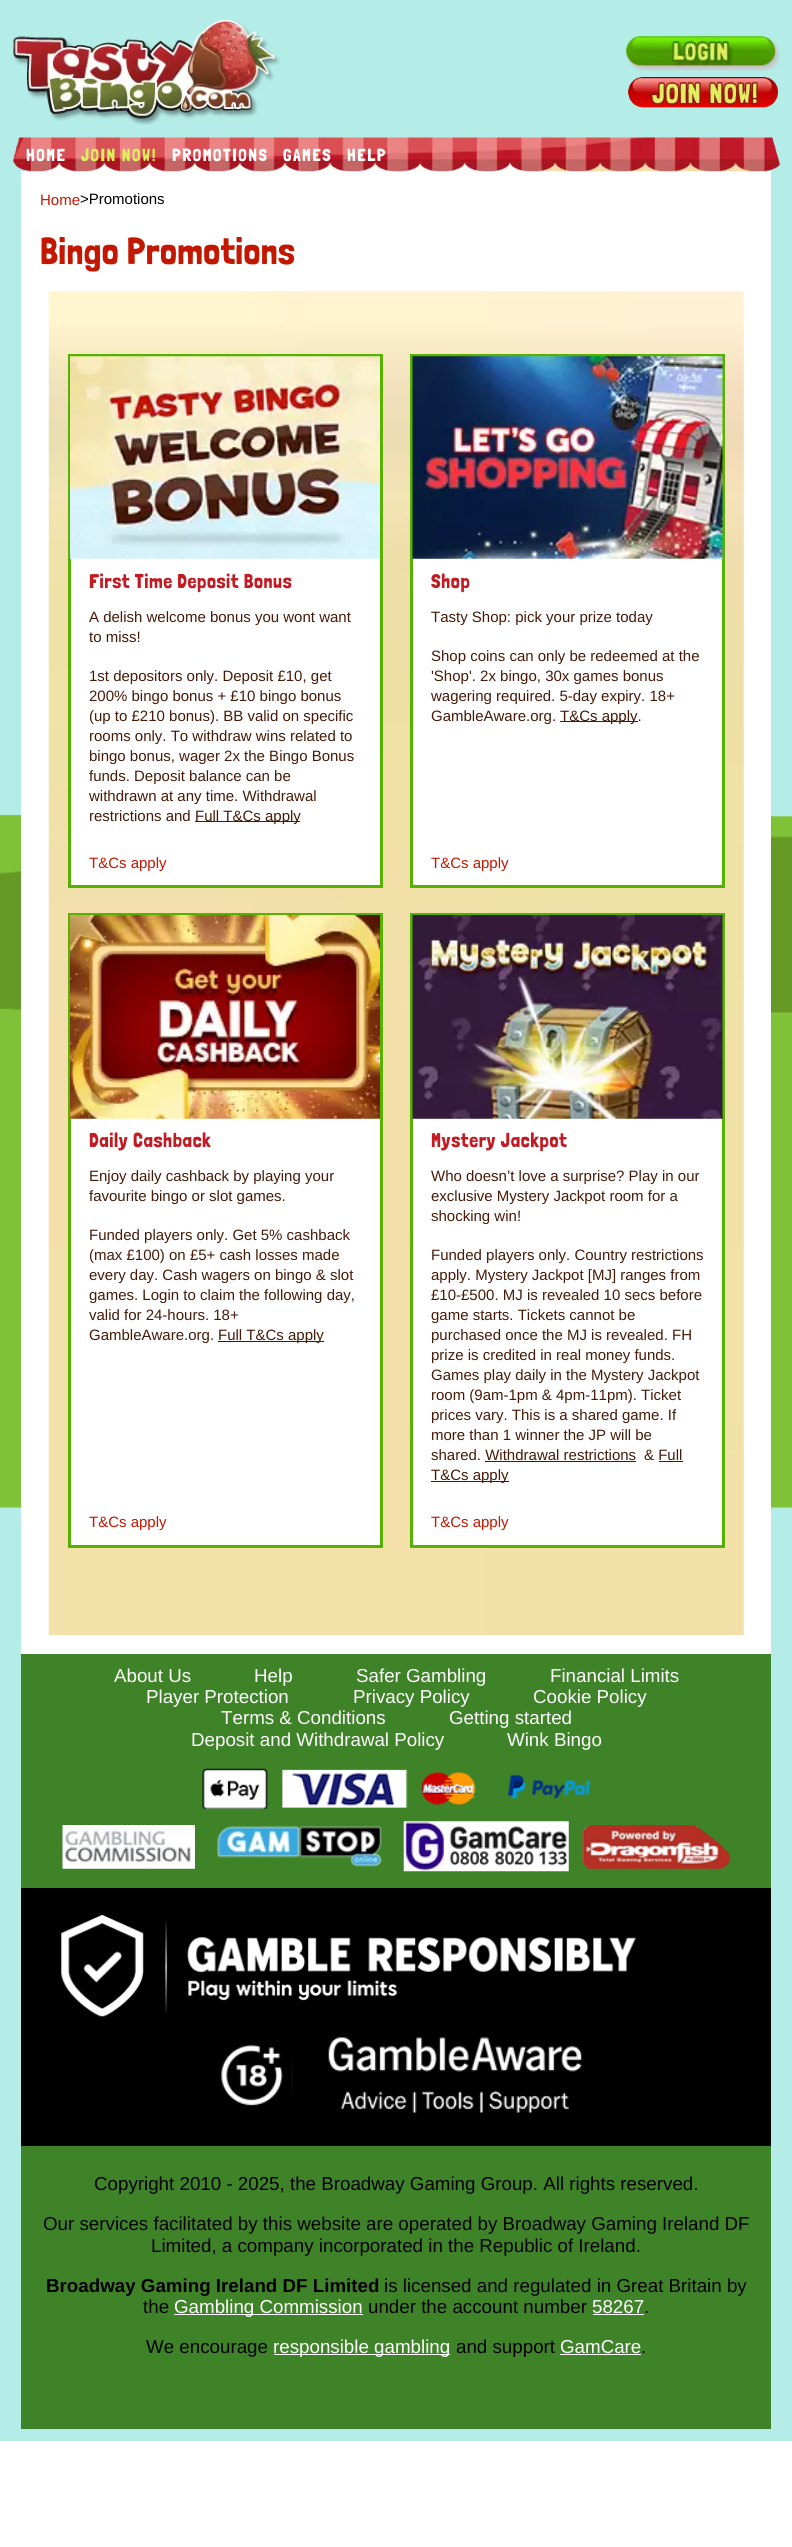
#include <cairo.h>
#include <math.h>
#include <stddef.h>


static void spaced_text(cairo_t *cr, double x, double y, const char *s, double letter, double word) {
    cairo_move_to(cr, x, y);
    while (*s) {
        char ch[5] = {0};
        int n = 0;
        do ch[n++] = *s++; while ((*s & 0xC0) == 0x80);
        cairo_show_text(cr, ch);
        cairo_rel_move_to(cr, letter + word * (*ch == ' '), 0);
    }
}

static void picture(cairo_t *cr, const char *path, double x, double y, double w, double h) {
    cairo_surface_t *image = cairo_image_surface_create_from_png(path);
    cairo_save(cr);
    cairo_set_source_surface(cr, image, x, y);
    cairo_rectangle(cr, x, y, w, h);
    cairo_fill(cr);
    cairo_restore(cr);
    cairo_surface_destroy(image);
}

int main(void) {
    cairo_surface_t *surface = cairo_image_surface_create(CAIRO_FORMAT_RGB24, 792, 2547);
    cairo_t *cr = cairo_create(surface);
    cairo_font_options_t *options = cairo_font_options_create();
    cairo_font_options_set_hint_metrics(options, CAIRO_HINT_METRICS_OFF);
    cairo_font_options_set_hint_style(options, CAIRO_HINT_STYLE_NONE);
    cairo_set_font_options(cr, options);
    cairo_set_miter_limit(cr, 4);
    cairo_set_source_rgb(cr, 1, 1, 1);
    cairo_paint(cr);
    cairo_set_source_rgb(cr, 0.706, 0.929, 0.91);
    cairo_rectangle(cr, 0, 0, 792, 2441);
    cairo_fill(cr);
    picture(cr, "img1.png", 0, 814, 792, 694);
    picture(cr, "img2.png", 13, 20, 267, 105);
    picture(cr, "img3.png", 626, 36, 154, 35);
    picture(cr, "img4.png", 628, 77, 150, 31);
    cairo_set_source_rgb(cr, 1, 1, 1);
    cairo_rectangle(cr, 21, 171, 750, 1483);
    cairo_fill(cr);
    picture(cr, "img5.png", 12, 137, 768, 35);
    cairo_select_font_face(cr, "Londrina Solid", CAIRO_FONT_SLANT_NORMAL, CAIRO_FONT_WEIGHT_NORMAL);
    cairo_set_font_size(cr, 17.5);
    spaced_text(cr, 26, 161, "HOME", 1.5, 0);
    cairo_set_source_rgb(cr, 0.871, 0.937, 0.365);
    spaced_text(cr, 81, 161, "JOIN NOW!", 1.5, 0);
    cairo_set_source_rgb(cr, 1, 1, 1);
    spaced_text(cr, 172, 161, "PROMOTIONS", 1.5, 0);
    spaced_text(cr, 283, 161, "GAMES", 1.5, 0);
    spaced_text(cr, 347, 161, "HELP", 1.5, 0);
    cairo_select_font_face(cr, "Liberation Sans", CAIRO_FONT_SLANT_NORMAL, CAIRO_FONT_WEIGHT_NORMAL);
    cairo_set_font_size(cr, 15);
    cairo_set_source_rgb(cr, 0.765, 0.09, 0);
    cairo_move_to(cr, 40, 205);
    cairo_show_text(cr, "Home");
    cairo_set_source_rgb(cr, 0, 0, 0);
    cairo_move_to(cr, 80, 204);
    cairo_show_text(cr, ">Promotions");
    cairo_select_font_face(cr, "Londrina Solid", CAIRO_FONT_SLANT_NORMAL, CAIRO_FONT_WEIGHT_NORMAL);
    cairo_set_font_size(cr, 37.5);
    cairo_set_source_rgb(cr, 0.765, 0.09, 0);
    spaced_text(cr, 40, 264, "Bingo Promotions", 0.4, 0);
    picture(cr, "img6.png", 48, 291, 696, 1344);
    cairo_set_source_rgb(cr, 1, 1, 1);
    cairo_rectangle(cr, 71, 558, 309, 327);
    cairo_fill(cr);
    cairo_rectangle(cr, 69.5, 355.5, 312, 531);
    cairo_set_source_rgb(cr, 0.333, 0.698, 0.004);
    cairo_set_line_width(cr, 3);
    cairo_stroke(cr);
    picture(cr, "img7.png", 70, 356, 310, 203);
    cairo_set_font_size(cr, 20);
    cairo_set_source_rgb(cr, 0.761, 0.106, 0.137);
    spaced_text(cr, 89, 588, "First Time Deposit Bonus", 0.6, 0);
    cairo_select_font_face(cr, "Liberation Sans", CAIRO_FONT_SLANT_NORMAL, CAIRO_FONT_WEIGHT_NORMAL);
    cairo_set_font_size(cr, 15);
    cairo_set_source_rgb(cr, 0.275, 0.102, 0.031);
    cairo_move_to(cr, 89, 622);
    cairo_show_text(cr, "A delish welcome bonus you wont want");
    cairo_move_to(cr, 89, 642);
    cairo_show_text(cr, "to miss!");
    cairo_move_to(cr, 89, 681);
    cairo_show_text(cr, "1st depositors only. Deposit £10, get");
    cairo_move_to(cr, 89, 701);
    cairo_show_text(cr, "200% bingo bonus + £10 bingo bonus");
    cairo_move_to(cr, 89, 721);
    cairo_show_text(cr, "(up to £210 bonus). BB valid on specific");
    cairo_move_to(cr, 89, 741);
    cairo_show_text(cr, "rooms only. To withdraw wins related to");
    cairo_move_to(cr, 89, 761);
    cairo_show_text(cr, "bingo bonus, wager 2x the Bingo Bonus");
    cairo_move_to(cr, 89, 781);
    cairo_show_text(cr, "funds. Deposit balance can be");
    cairo_move_to(cr, 89, 801);
    cairo_show_text(cr, "withdrawn at any time. Withdrawal");
    cairo_move_to(cr, 89, 821);
    cairo_show_text(cr, "restrictions and");
    cairo_rectangle(cr, 195, 821, 105, 1);
    cairo_fill(cr);
    cairo_move_to(cr, 195, 821);
    cairo_show_text(cr, "Full T&Cs apply");
    cairo_set_source_rgb(cr, 0.765, 0.09, 0);
    cairo_move_to(cr, 89, 868);
    cairo_show_text(cr, "T&Cs apply");
    cairo_set_source_rgb(cr, 1, 1, 1);
    cairo_rectangle(cr, 413, 558, 309, 327);
    cairo_fill(cr);
    cairo_rectangle(cr, 411.5, 355.5, 312, 531);
    cairo_set_source_rgb(cr, 0.333, 0.698, 0.004);
    cairo_stroke(cr);
    picture(cr, "img8.png", 412, 356, 311, 203);
    cairo_select_font_face(cr, "Londrina Solid", CAIRO_FONT_SLANT_NORMAL, CAIRO_FONT_WEIGHT_NORMAL);
    cairo_set_font_size(cr, 20);
    cairo_set_source_rgb(cr, 0.761, 0.106, 0.137);
    spaced_text(cr, 431, 588, "Shop", 0.6, 0);
    cairo_select_font_face(cr, "Liberation Sans", CAIRO_FONT_SLANT_NORMAL, CAIRO_FONT_WEIGHT_NORMAL);
    cairo_set_font_size(cr, 15);
    cairo_set_source_rgb(cr, 0.275, 0.102, 0.031);
    cairo_move_to(cr, 431, 622);
    cairo_show_text(cr, "Tasty Shop: pick your prize today");
    cairo_move_to(cr, 431, 661);
    cairo_show_text(cr, "Shop coins can only be redeemed at the");
    cairo_move_to(cr, 431, 681);
    cairo_show_text(cr, "'Shop'. 2x bingo, 30x games bonus");
    cairo_move_to(cr, 431, 701);
    cairo_show_text(cr, "wagering required. 5-day expiry. 18+");
    cairo_move_to(cr, 431, 721);
    cairo_show_text(cr, "GambleAware.org.");
    cairo_rectangle(cr, 560, 721, 78, 1);
    cairo_fill(cr);
    cairo_move_to(cr, 560, 721);
    cairo_show_text(cr, "T&Cs apply.");
    cairo_set_source_rgb(cr, 0.765, 0.09, 0);
    cairo_move_to(cr, 431, 868);
    cairo_show_text(cr, "T&Cs apply");
    cairo_set_source_rgb(cr, 1, 1, 1);
    cairo_rectangle(cr, 71, 1118, 309, 427);
    cairo_fill(cr);
    cairo_rectangle(cr, 69.5, 914.5, 312, 632);
    cairo_set_source_rgb(cr, 0.333, 0.698, 0.004);
    cairo_stroke(cr);
    picture(cr, "img9.png", 70, 915, 310, 204);
    cairo_select_font_face(cr, "Londrina Solid", CAIRO_FONT_SLANT_NORMAL, CAIRO_FONT_WEIGHT_NORMAL);
    cairo_set_font_size(cr, 20);
    cairo_set_source_rgb(cr, 0.761, 0.106, 0.137);
    spaced_text(cr, 89, 1147, "Daily Cashback", 0.6, 0);
    cairo_select_font_face(cr, "Liberation Sans", CAIRO_FONT_SLANT_NORMAL, CAIRO_FONT_WEIGHT_NORMAL);
    cairo_set_font_size(cr, 15);
    cairo_set_source_rgb(cr, 0.275, 0.102, 0.031);
    cairo_move_to(cr, 89, 1181);
    cairo_show_text(cr, "Enjoy daily cashback by playing your");
    cairo_move_to(cr, 89, 1201);
    cairo_show_text(cr, "favourite bingo or slot games.");
    cairo_move_to(cr, 89, 1240);
    cairo_show_text(cr, "Funded players only. Get 5% cashback");
    cairo_move_to(cr, 89, 1260);
    cairo_show_text(cr, "(max £100) on £5+ cash losses made");
    cairo_move_to(cr, 89, 1280);
    cairo_show_text(cr, "every day. Cash wagers on bingo & slot");
    cairo_move_to(cr, 89, 1300);
    cairo_show_text(cr, "games. Login to claim the following day,");
    cairo_move_to(cr, 89, 1320);
    cairo_show_text(cr, "valid for 24-hours. 18+");
    cairo_move_to(cr, 89, 1340);
    cairo_show_text(cr, "GambleAware.org.");
    cairo_rectangle(cr, 218, 1341, 106, 1);
    cairo_fill(cr);
    cairo_move_to(cr, 218, 1340);
    cairo_show_text(cr, "Full T&Cs apply");
    cairo_set_source_rgb(cr, 0.765, 0.09, 0);
    cairo_move_to(cr, 89, 1527);
    cairo_show_text(cr, "T&Cs apply");
    cairo_set_source_rgb(cr, 1, 1, 1);
    cairo_rectangle(cr, 413, 1118, 309, 427);
    cairo_fill(cr);
    cairo_rectangle(cr, 411.5, 914.5, 312, 632);
    cairo_set_source_rgb(cr, 0.333, 0.698, 0.004);
    cairo_stroke(cr);
    picture(cr, "img10.png", 412, 915, 311, 204);
    cairo_select_font_face(cr, "Londrina Solid", CAIRO_FONT_SLANT_NORMAL, CAIRO_FONT_WEIGHT_NORMAL);
    cairo_set_font_size(cr, 20);
    cairo_set_source_rgb(cr, 0.761, 0.106, 0.137);
    spaced_text(cr, 431, 1147, "Mystery Jackpot", 0.6, 0);
    cairo_select_font_face(cr, "Liberation Sans", CAIRO_FONT_SLANT_NORMAL, CAIRO_FONT_WEIGHT_NORMAL);
    cairo_set_font_size(cr, 15);
    cairo_set_source_rgb(cr, 0.275, 0.102, 0.031);
    cairo_move_to(cr, 431, 1181);
    cairo_show_text(cr, "Who doesn’t love a surprise? Play in our");
    cairo_move_to(cr, 431, 1201);
    cairo_show_text(cr, "exclusive Mystery Jackpot room for a");
    cairo_move_to(cr, 431, 1221);
    cairo_show_text(cr, "shocking win!");
    cairo_move_to(cr, 431, 1260);
    cairo_show_text(cr, "Funded players only. Country restrictions");
    cairo_move_to(cr, 431, 1280);
    cairo_show_text(cr, "apply. Mystery Jackpot [MJ] ranges from");
    cairo_move_to(cr, 431, 1300);
    cairo_show_text(cr, "£10-£500. MJ is revealed 10 secs before");
    cairo_move_to(cr, 431, 1320);
    cairo_show_text(cr, "game starts. Tickets cannot be");
    cairo_move_to(cr, 431, 1340);
    cairo_show_text(cr, "purchased once the MJ is revealed. FH");
    cairo_move_to(cr, 431, 1360);
    cairo_show_text(cr, "prize is credited in real money funds.");
    cairo_move_to(cr, 431, 1380);
    cairo_show_text(cr, "Games play daily in the Mystery Jackpot");
    cairo_move_to(cr, 431, 1400);
    cairo_show_text(cr, "room (9am-1pm & 4pm-11pm). Ticket");
    cairo_move_to(cr, 431, 1420);
    cairo_show_text(cr, "prices vary. This is a shared game. If");
    cairo_move_to(cr, 431, 1440);
    cairo_show_text(cr, "more than 1 winner the JP will be");
    cairo_move_to(cr, 431, 1460);
    cairo_show_text(cr, "shared. Withdrawal restrictions");
    cairo_move_to(cr, 644, 1460);
    cairo_show_text(cr, "& Full");
    cairo_rectangle(cr, 485, 1461, 151, 1);
    cairo_fill(cr);
    cairo_rectangle(cr, 431, 1481, 78, 1);
    cairo_fill(cr);
    cairo_move_to(cr, 431, 1480);
    cairo_show_text(cr, "T&Cs apply");
    cairo_rectangle(cr, 659, 1461, 24, 1);
    cairo_fill(cr);
    cairo_set_source_rgb(cr, 0.765, 0.09, 0);
    cairo_move_to(cr, 431, 1527);
    cairo_show_text(cr, "T&Cs apply");
    cairo_set_source_rgb(cr, 0.247, 0.514, 0.161);
    cairo_rectangle(cr, 21, 1654, 750, 775);
    cairo_fill(cr);
    cairo_set_font_size(cr, 18.75);
    cairo_set_source_rgb(cr, 1, 1, 1);
    cairo_move_to(cr, 114, 1682);
    cairo_show_text(cr, "About Us");
    cairo_move_to(cr, 254, 1682);
    cairo_show_text(cr, "Help");
    cairo_move_to(cr, 356, 1682);
    cairo_show_text(cr, "Safer Gambling");
    cairo_move_to(cr, 550, 1682);
    cairo_show_text(cr, "Financial Limits");
    cairo_move_to(cr, 146, 1703);
    cairo_show_text(cr, "Player Protection");
    cairo_move_to(cr, 353, 1703);
    cairo_show_text(cr, "Privacy Policy");
    cairo_move_to(cr, 533, 1703);
    cairo_show_text(cr, "Cookie Policy");
    cairo_move_to(cr, 221, 1724);
    cairo_show_text(cr, "Terms & Conditions");
    cairo_move_to(cr, 449, 1724);
    cairo_show_text(cr, "Getting started");
    cairo_move_to(cr, 191, 1746);
    cairo_show_text(cr, "Deposit and Withdrawal Policy");
    cairo_move_to(cr, 507, 1746);
    cairo_show_text(cr, "Wink Bingo");
    picture(cr, "img11.png", 202, 1768, 388, 41);
    picture(cr, "img12.png", 62, 1825, 133, 44);
    picture(cr, "img13.png", 217, 1826, 165, 41);
    picture(cr, "img14.png", 403, 1821, 166, 51);
    picture(cr, "img15.png", 582, 1825, 149, 44);
    cairo_set_source_rgb(cr, 0, 0, 0);
    cairo_rectangle(cr, 21, 1888, 750, 258);
    cairo_fill(cr);
    picture(cr, "img16.png", 61, 1915, 575, 102);
    picture(cr, "img17.png", 221, 2044, 72, 62);
    picture(cr, "img18.png", 328, 2037, 254, 76);
    cairo_move_to(cr, 94, 2190);
    cairo_show_text(cr, "Copyright 2010 - 2025, the Broadway Gaming Group. All rights reserved.");
    cairo_move_to(cr, 43, 2230);
    cairo_show_text(cr, "Our services facilitated by this website are operated by Broadway Gaming Ireland DF");
    cairo_move_to(cr, 151, 2252);
    cairo_show_text(cr, "Limited, a company incorporated in the Republic of Ireland.");
    cairo_select_font_face(cr, "Liberation Sans", CAIRO_FONT_SLANT_NORMAL, CAIRO_FONT_WEIGHT_BOLD);
    cairo_move_to(cr, 46, 2292);
    cairo_show_text(cr, "Broadway Gaming Ireland DF Limited");
    cairo_select_font_face(cr, "Liberation Sans", CAIRO_FONT_SLANT_NORMAL, CAIRO_FONT_WEIGHT_NORMAL);
    cairo_move_to(cr, 384, 2292);
    cairo_show_text(cr, "is licensed and regulated in Great Britain by");
    cairo_move_to(cr, 143, 2313);
    cairo_show_text(cr, "the");
    cairo_set_source_rgb(cr, 1, 1, 1);
    cairo_rectangle(cr, 174, 2314, 189, 1);
    cairo_fill(cr);
    cairo_move_to(cr, 174, 2313);
    cairo_show_text(cr, "Gambling Commission");
    cairo_set_source_rgb(cr, 0, 0, 0);
    cairo_move_to(cr, 368, 2313);
    cairo_show_text(cr, "under the account number");
    cairo_set_source_rgb(cr, 1, 1, 1);
    cairo_move_to(cr, 592, 2313);
    cairo_show_text(cr, "58267");
    cairo_rectangle(cr, 593, 2314, 51, 1);
    cairo_fill(cr);
    cairo_set_source_rgb(cr, 0, 0, 0);
    cairo_move_to(cr, 644, 2313);
    cairo_show_text(cr, ".");
    cairo_move_to(cr, 146, 2353);
    cairo_show_text(cr, "We encourage");
    cairo_set_source_rgb(cr, 1, 1, 1);
    cairo_rectangle(cr, 274, 2354, 176, 1);
    cairo_fill(cr);
    cairo_move_to(cr, 273, 2353);
    cairo_show_text(cr, "responsible gambling");
    cairo_set_source_rgb(cr, 0, 0, 0);
    cairo_move_to(cr, 456, 2353);
    cairo_show_text(cr, "and support");
    cairo_set_source_rgb(cr, 1, 1, 1);
    cairo_move_to(cr, 560, 2353);
    cairo_show_text(cr, "GamCare");
    cairo_rectangle(cr, 560, 2354, 81, 1);
    cairo_fill(cr);
    cairo_set_source_rgb(cr, 0, 0, 0);
    cairo_move_to(cr, 641, 2353);
    cairo_show_text(cr, ".");
    cairo_surface_write_to_png(surface, "page.png");
    cairo_font_options_destroy(options);
    cairo_destroy(cr);
    cairo_surface_destroy(surface);
    return 0;
}
